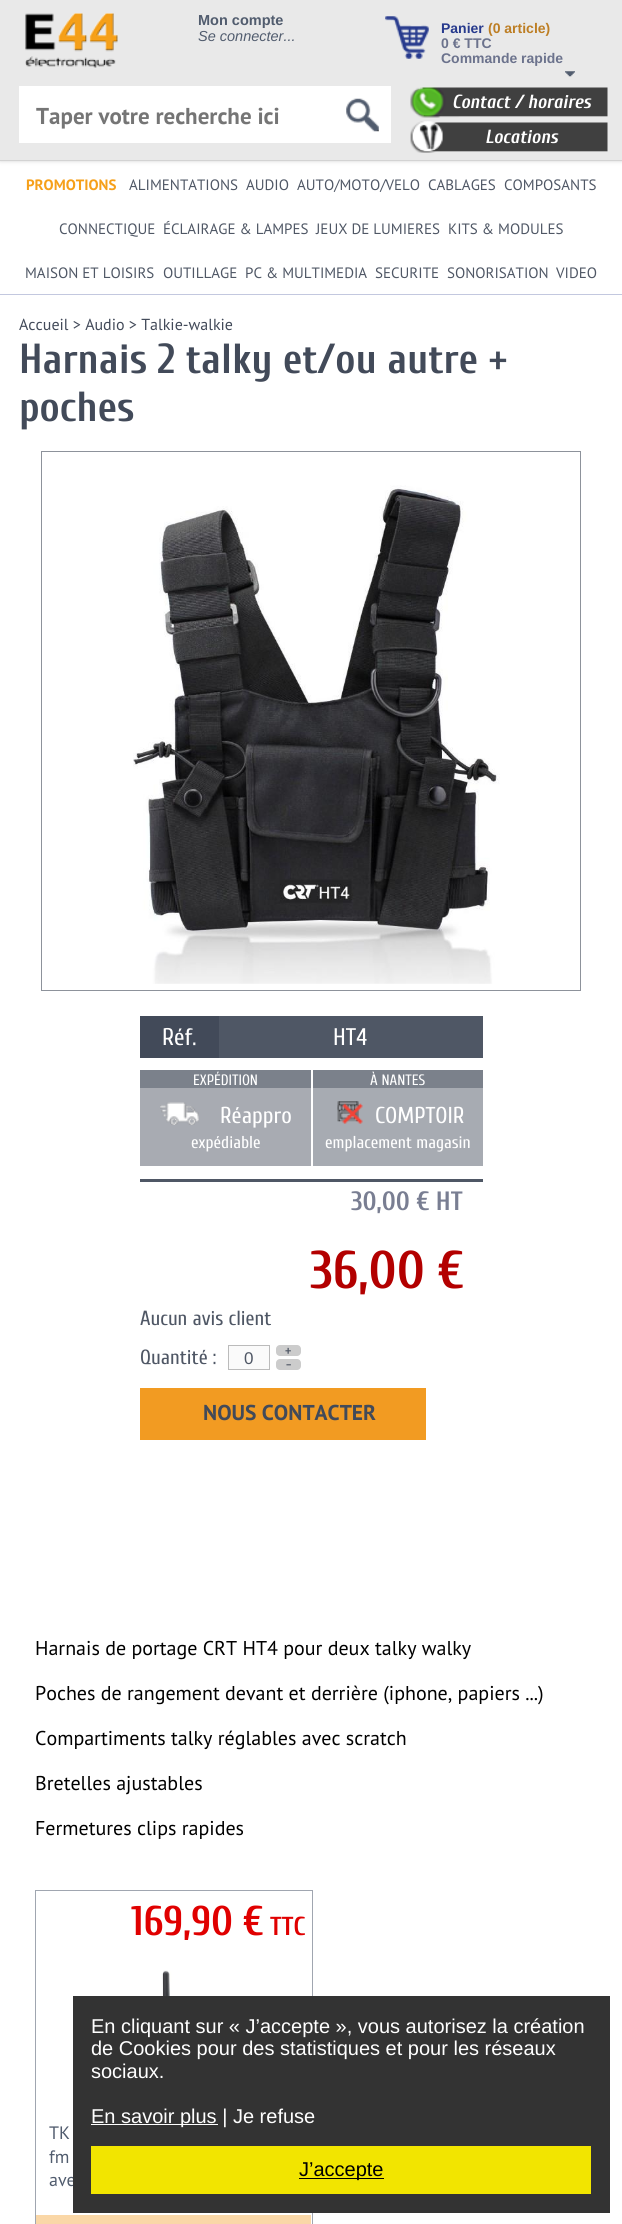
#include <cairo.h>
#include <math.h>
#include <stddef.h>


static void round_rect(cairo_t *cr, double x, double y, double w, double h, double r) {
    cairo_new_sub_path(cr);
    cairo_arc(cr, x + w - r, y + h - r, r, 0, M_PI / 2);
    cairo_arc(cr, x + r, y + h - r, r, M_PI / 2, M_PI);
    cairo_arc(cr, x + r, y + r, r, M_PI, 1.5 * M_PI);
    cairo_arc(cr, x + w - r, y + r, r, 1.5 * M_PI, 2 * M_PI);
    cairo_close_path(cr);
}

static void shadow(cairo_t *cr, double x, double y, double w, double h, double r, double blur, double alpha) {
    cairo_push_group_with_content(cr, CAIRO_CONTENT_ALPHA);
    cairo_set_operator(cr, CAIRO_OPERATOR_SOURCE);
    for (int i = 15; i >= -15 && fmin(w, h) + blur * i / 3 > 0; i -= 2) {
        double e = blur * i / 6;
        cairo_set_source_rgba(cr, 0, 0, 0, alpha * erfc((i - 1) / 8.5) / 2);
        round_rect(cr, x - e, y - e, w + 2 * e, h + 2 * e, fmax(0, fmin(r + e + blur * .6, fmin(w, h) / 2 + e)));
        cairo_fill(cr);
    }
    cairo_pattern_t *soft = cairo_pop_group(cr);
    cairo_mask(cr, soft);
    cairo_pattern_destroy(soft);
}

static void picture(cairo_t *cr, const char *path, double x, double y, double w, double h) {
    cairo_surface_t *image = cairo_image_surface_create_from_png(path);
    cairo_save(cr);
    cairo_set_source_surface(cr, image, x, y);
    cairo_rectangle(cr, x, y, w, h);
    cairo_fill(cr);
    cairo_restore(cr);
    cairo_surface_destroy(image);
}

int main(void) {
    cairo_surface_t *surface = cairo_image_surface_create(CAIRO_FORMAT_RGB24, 622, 2224);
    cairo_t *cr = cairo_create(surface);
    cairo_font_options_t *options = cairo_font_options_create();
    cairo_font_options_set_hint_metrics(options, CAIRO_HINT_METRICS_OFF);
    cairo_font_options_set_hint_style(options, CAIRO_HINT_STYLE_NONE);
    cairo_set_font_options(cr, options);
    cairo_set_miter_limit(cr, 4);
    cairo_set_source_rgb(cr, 1, 1, 1);
    cairo_paint(cr);
    cairo_set_source_rgb(cr, 0.827, 0.827, 0.827);
    shadow(cr, 0, 0, 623, 161, 0, 2, 1);
    cairo_set_source_rgb(cr, 0.914, 0.914, 0.914);
    cairo_rectangle(cr, 0, 0, 622, 160);
    cairo_fill(cr);
    cairo_set_source_rgb(cr, 0.827, 0.827, 0.827);
    cairo_rectangle(cr, 0, 160, 622, 1);
    cairo_fill(cr);
    picture(cr, "img1.png", 25, 13, 93, 55);
    cairo_select_font_face(cr, "Liberation Sans", CAIRO_FONT_SLANT_NORMAL, CAIRO_FONT_WEIGHT_BOLD);
    cairo_set_font_size(cr, 14.5);
    cairo_set_source_rgb(cr, 0.318, 0.361, 0.431);
    cairo_move_to(cr, 198, 25);
    cairo_show_text(cr, "Mon compte");
    cairo_select_font_face(cr, "Liberation Sans", CAIRO_FONT_SLANT_ITALIC, CAIRO_FONT_WEIGHT_NORMAL);
    cairo_move_to(cr, 198, 41);
    cairo_show_text(cr, "Se connecter...");
    picture(cr, "img2.png", 385, 16, 44, 43);
    cairo_select_font_face(cr, "Liberation Sans", CAIRO_FONT_SLANT_NORMAL, CAIRO_FONT_WEIGHT_BOLD);
    cairo_set_font_size(cr, 14);
    cairo_set_source_rgb(cr, 0.153, 0.227, 0.553);
    cairo_move_to(cr, 441, 33);
    cairo_show_text(cr, "Panier");
    cairo_set_source_rgb(cr, 0.741, 0.494, 0.141);
    cairo_move_to(cr, 488, 33);
    cairo_show_text(cr, "(0 article)");
    cairo_set_source_rgb(cr, 0.424, 0.451, 0.553);
    cairo_move_to(cr, 441, 48);
    cairo_show_text(cr, "0 € TTC");
    cairo_move_to(cr, 441, 63);
    cairo_show_text(cr, "Commande rapide");
    picture(cr, "img3.png", 565, 71, 10, 6);
    cairo_set_source_rgb(cr, 1, 1, 1);
    cairo_rectangle(cr, 19, 86, 372, 57);
    cairo_fill(cr);
    cairo_select_font_face(cr, "PT Sans", CAIRO_FONT_SLANT_NORMAL, CAIRO_FONT_WEIGHT_BOLD);
    cairo_set_font_size(cr, 23);
    cairo_set_source_rgb(cr, 0.459, 0.459, 0.459);
    cairo_move_to(cr, 36, 124);
    cairo_show_text(cr, "Taper votre recherche ici");
    picture(cr, "img4.png", 346, 98, 33, 34);
    picture(cr, "img5.png", 410, 87, 198, 31);
    cairo_select_font_face(cr, "Cuprum", CAIRO_FONT_SLANT_ITALIC, CAIRO_FONT_WEIGHT_BOLD);
    cairo_set_font_size(cr, 19);
    cairo_set_source_rgb(cr, 1, 1, 1);
    cairo_move_to(cr, 452, 108);
    cairo_show_text(cr, "Contact / horaires");
    picture(cr, "img6.png", 410, 121, 198, 32);
    cairo_move_to(cr, 485, 143);
    cairo_show_text(cr, "Locations");
    cairo_set_source_rgb(cr, 0.765, 0.784, 0.875);
    cairo_rectangle(cr, 0, 294, 622, 1);
    cairo_fill(cr);
    cairo_select_font_face(cr, "PT Sans", CAIRO_FONT_SLANT_NORMAL, CAIRO_FONT_WEIGHT_BOLD);
    cairo_set_font_size(cr, 15);
    cairo_set_source_rgb(cr, 0.961, 0.627, 0.102);
    cairo_move_to(cr, 26, 190);
    cairo_show_text(cr, "PROMOTIONS");
    cairo_select_font_face(cr, "PT Sans", CAIRO_FONT_SLANT_NORMAL, CAIRO_FONT_WEIGHT_NORMAL);
    cairo_set_source_rgb(cr, 0.31, 0.341, 0.396);
    cairo_move_to(cr, 129, 190);
    cairo_show_text(cr, "ALIMENTATIONS");
    cairo_move_to(cr, 246, 190);
    cairo_show_text(cr, "AUDIO");
    cairo_move_to(cr, 297, 190);
    cairo_show_text(cr, "AUTO/MOTO/VELO");
    cairo_move_to(cr, 428, 190);
    cairo_show_text(cr, "CABLAGES");
    cairo_move_to(cr, 504, 190);
    cairo_show_text(cr, "COMPOSANTS");
    cairo_move_to(cr, 59, 234);
    cairo_show_text(cr, "CONNECTIQUE");
    cairo_move_to(cr, 163, 234);
    cairo_show_text(cr, "ÉCLAIRAGE & LAMPES");
    cairo_move_to(cr, 316, 234);
    cairo_show_text(cr, "JEUX DE LUMIERES");
    cairo_move_to(cr, 448, 234);
    cairo_show_text(cr, "KITS & MODULES");
    cairo_move_to(cr, 25, 278);
    cairo_show_text(cr, "MAISON ET LOISIRS");
    cairo_move_to(cr, 163, 278);
    cairo_show_text(cr, "OUTILLAGE");
    cairo_move_to(cr, 245, 278);
    cairo_show_text(cr, "PC & MULTIMEDIA");
    cairo_move_to(cr, 375, 278);
    cairo_show_text(cr, "SECURITE");
    cairo_move_to(cr, 447, 278);
    cairo_show_text(cr, "SONORISATION");
    cairo_move_to(cr, 556, 278);
    cairo_show_text(cr, "VIDEO");
    cairo_set_font_size(cr, 16);
    cairo_set_source_rgb(cr, 0.259, 0.29, 0.349);
    cairo_move_to(cr, 19, 330);
    cairo_show_text(cr, "Accueil > Audio > Talkie-walkie");
    cairo_select_font_face(cr, "Cuprum", CAIRO_FONT_SLANT_NORMAL, CAIRO_FONT_WEIGHT_BOLD);
    cairo_set_font_size(cr, 42);
    cairo_move_to(cr, 19, 373);
    cairo_show_text(cr, "Harnais 2 talky et/ou autre +");
    cairo_move_to(cr, 19, 421);
    cairo_show_text(cr, "poches");
    cairo_rectangle(cr, 41.5, 451.5, 539, 539);
    cairo_set_source_rgb(cr, 0.553, 0.573, 0.608);
    cairo_set_line_width(cr, 1);
    cairo_stroke(cr);
    picture(cr, "img7.png", 133, 485, 367, 499);
    cairo_set_source_rgb(cr, 0.259, 0.29, 0.349);
    cairo_rectangle(cr, 140, 1016, 79, 42);
    cairo_fill(cr);
    cairo_select_font_face(cr, "Cuprum", CAIRO_FONT_SLANT_NORMAL, CAIRO_FONT_WEIGHT_NORMAL);
    cairo_set_font_size(cr, 24);
    cairo_set_source_rgb(cr, 1, 1, 1);
    cairo_move_to(cr, 162, 1045);
    cairo_show_text(cr, "Réf.");
    cairo_set_source_rgb(cr, 0.31, 0.341, 0.396);
    cairo_rectangle(cr, 219, 1016, 264, 42);
    cairo_fill(cr);
    cairo_set_source_rgb(cr, 1, 1, 1);
    cairo_move_to(cr, 333, 1045);
    cairo_show_text(cr, "HT4");
    cairo_set_source_rgb(cr, 0.659, 0.671, 0.698);
    cairo_rectangle(cr, 140, 1088, 171, 78);
    cairo_fill(cr);
    cairo_set_source_rgb(cr, 0.482, 0.506, 0.545);
    cairo_rectangle(cr, 140, 1070, 171, 18);
    cairo_fill(cr);
    cairo_set_font_size(cr, 15);
    cairo_set_source_rgb(cr, 1, 1, 1);
    cairo_move_to(cr, 193, 1085);
    cairo_show_text(cr, "EXPÉDITION");
    picture(cr, "img8.png", 160, 1102, 39, 23);
    cairo_set_font_size(cr, 23);
    cairo_move_to(cr, 220, 1123);
    cairo_show_text(cr, "Réappro");
    cairo_set_font_size(cr, 17.25);
    cairo_move_to(cr, 191, 1148);
    cairo_show_text(cr, "expédiable");
    cairo_set_source_rgb(cr, 0.655, 0.671, 0.698);
    cairo_rectangle(cr, 313, 1088, 170, 78);
    cairo_fill(cr);
    cairo_set_source_rgb(cr, 0.482, 0.506, 0.545);
    cairo_rectangle(cr, 313, 1070, 170, 18);
    cairo_fill(cr);
    cairo_set_font_size(cr, 15);
    cairo_set_source_rgb(cr, 1, 1, 1);
    cairo_move_to(cr, 370, 1085);
    cairo_show_text(cr, "À NANTES");
    picture(cr, "img9.png", 337, 1101, 26, 23);
    cairo_set_font_size(cr, 23);
    cairo_move_to(cr, 375, 1123);
    cairo_show_text(cr, "COMPTOIR");
    cairo_set_font_size(cr, 17.25);
    cairo_move_to(cr, 325, 1148);
    cairo_show_text(cr, "emplacement magasin");
    cairo_set_source_rgb(cr, 0.31, 0.341, 0.396);
    cairo_rectangle(cr, 140, 1179, 343, 3);
    cairo_fill(cr);
    cairo_select_font_face(cr, "Cuprum", CAIRO_FONT_SLANT_NORMAL, CAIRO_FONT_WEIGHT_BOLD);
    cairo_set_font_size(cr, 26.5);
    cairo_set_source_rgb(cr, 0.475, 0.494, 0.573);
    cairo_move_to(cr, 351, 1210);
    cairo_show_text(cr, "30,00 € HT");
    cairo_set_font_size(cr, 53);
    cairo_set_source_rgb(cr, 0.702, 0, 0);
    cairo_move_to(cr, 310, 1288);
    cairo_show_text(cr, "36,00 €");
    cairo_select_font_face(cr, "Cuprum", CAIRO_FONT_SLANT_NORMAL, CAIRO_FONT_WEIGHT_NORMAL);
    cairo_set_font_size(cr, 20.5);
    cairo_set_source_rgb(cr, 0.31, 0.341, 0.396);
    cairo_move_to(cr, 140, 1325);
    cairo_show_text(cr, "Aucun avis client");
    cairo_move_to(cr, 140, 1364);
    cairo_show_text(cr, "Quantité :");
    cairo_set_source_rgb(cr, 0.98, 0.98, 0.98);
    cairo_rectangle(cr, 228.5, 1345.5, 41, 24);
    cairo_fill_preserve(cr);
    cairo_set_source_rgb(cr, 0.733, 0.733, 0.733);
    cairo_stroke(cr);
    cairo_select_font_face(cr, "Liberation Sans", CAIRO_FONT_SLANT_NORMAL, CAIRO_FONT_WEIGHT_NORMAL);
    cairo_set_font_size(cr, 17);
    cairo_set_source_rgb(cr, 0.31, 0.341, 0.396);
    cairo_move_to(cr, 244, 1364);
    cairo_show_text(cr, "0");
    cairo_set_source_rgb(cr, 0.8, 0.8, 0.8);
    round_rect(cr, 276, 1345, 25, 11, 4);
    cairo_fill(cr);
    cairo_select_font_face(cr, "Cuprum", CAIRO_FONT_SLANT_NORMAL, CAIRO_FONT_WEIGHT_BOLD);
    cairo_set_font_size(cr, 14);
    cairo_set_source_rgb(cr, 0.31, 0.341, 0.396);
    cairo_move_to(cr, 285, 1355);
    cairo_show_text(cr, "+");
    cairo_set_source_rgb(cr, 0.8, 0.8, 0.8);
    round_rect(cr, 276, 1359, 25, 11, 4);
    cairo_fill(cr);
    cairo_set_source_rgb(cr, 0.31, 0.341, 0.396);
    cairo_move_to(cr, 286, 1369);
    cairo_show_text(cr, "-");
    cairo_set_source_rgb(cr, 0.949, 0.608, 0.133);
    cairo_rectangle(cr, 140, 1388, 286, 52);
    cairo_fill(cr);
    cairo_select_font_face(cr, "PT Sans", CAIRO_FONT_SLANT_NORMAL, CAIRO_FONT_WEIGHT_BOLD);
    cairo_set_font_size(cr, 21.5);
    cairo_set_source_rgb(cr, 0.259, 0.29, 0.349);
    cairo_move_to(cr, 203, 1420);
    cairo_show_text(cr, "NOUS CONTACTER");
    cairo_select_font_face(cr, "PT Sans", CAIRO_FONT_SLANT_NORMAL, CAIRO_FONT_WEIGHT_NORMAL);
    cairo_set_font_size(cr, 20);
    cairo_set_source_rgb(cr, 0, 0, 0);
    cairo_move_to(cr, 35, 1655);
    cairo_show_text(cr, "Harnais de portage CRT HT4 pour deux talky walky");
    cairo_move_to(cr, 35, 1700);
    cairo_show_text(cr, "Poches de rangement devant et derrière (iphone, papiers ...)");
    cairo_move_to(cr, 35, 1745);
    cairo_show_text(cr, "Compartiments talky réglables avec scratch");
    cairo_move_to(cr, 35, 1790);
    cairo_show_text(cr, "Bretelles ajustables");
    cairo_move_to(cr, 35, 1835);
    cairo_show_text(cr, "Fermetures clips rapides");
    cairo_rectangle(cr, 35.5, 1890.5, 277, 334);
    cairo_set_source_rgb(cr, 0.627, 0.651, 0.69);
    cairo_stroke(cr);
    cairo_select_font_face(cr, "Cuprum", CAIRO_FONT_SLANT_NORMAL, CAIRO_FONT_WEIGHT_BOLD);
    cairo_set_font_size(cr, 41.5);
    cairo_set_source_rgb(cr, 0.878, 0, 0);
    cairo_move_to(cr, 131, 1935);
    cairo_show_text(cr, "169,90 €");
    cairo_set_font_size(cr, 26);
    cairo_move_to(cr, 270, 1935);
    cairo_show_text(cr, "TTC");
    picture(cr, "img10.png", 158, 1970, 32, 26);
    cairo_select_font_face(cr, "PT Sans", CAIRO_FONT_SLANT_NORMAL, CAIRO_FONT_WEIGHT_NORMAL);
    cairo_set_font_size(cr, 18);
    cairo_set_source_rgb(cr, 0.318, 0.361, 0.431);
    cairo_move_to(cr, 49, 2139);
    cairo_show_text(cr, "TK");
    cairo_move_to(cr, 49, 2163);
    cairo_show_text(cr, "fm");
    cairo_move_to(cr, 49, 2186);
    cairo_show_text(cr, "ave");
    cairo_set_source_rgb(cr, 0.98, 0.843, 0.655);
    cairo_rectangle(cr, 36, 2215, 275, 9);
    cairo_fill(cr);
    cairo_set_source_rgb(cr, 0.2, 0.2, 0.2);
    cairo_rectangle(cr, 73, 1996, 537, 217);
    cairo_fill(cr);
    cairo_select_font_face(cr, "Liberation Sans", CAIRO_FONT_SLANT_NORMAL, CAIRO_FONT_WEIGHT_NORMAL);
    cairo_set_font_size(cr, 20);
    cairo_set_source_rgb(cr, 1, 1, 1);
    cairo_move_to(cr, 91, 2033);
    cairo_show_text(cr, "En cliquant sur « J’accepte », vous autorisez la création");
    cairo_move_to(cr, 91, 2055);
    cairo_show_text(cr, "de Cookies pour des statistiques et pour les réseaux");
    cairo_move_to(cr, 91, 2078);
    cairo_show_text(cr, "sociaux.");
    cairo_rectangle(cr, 91, 2124, 127, 1);
    cairo_fill(cr);
    cairo_move_to(cr, 91, 2123);
    cairo_show_text(cr, "En savoir plus | Je refuse");
    cairo_set_source_rgb(cr, 0.949, 0.898, 0);
    cairo_rectangle(cr, 91, 2146, 500, 48);
    cairo_fill(cr);
    cairo_set_source_rgb(cr, 0, 0, 0);
    cairo_rectangle(cr, 299, 2178, 85, 1);
    cairo_fill(cr);
    cairo_move_to(cr, 299, 2176);
    cairo_show_text(cr, "J’accepte");
    cairo_surface_write_to_png(surface, "page.png");
    cairo_font_options_destroy(options);
    cairo_destroy(cr);
    cairo_surface_destroy(surface);
    return 0;
}
